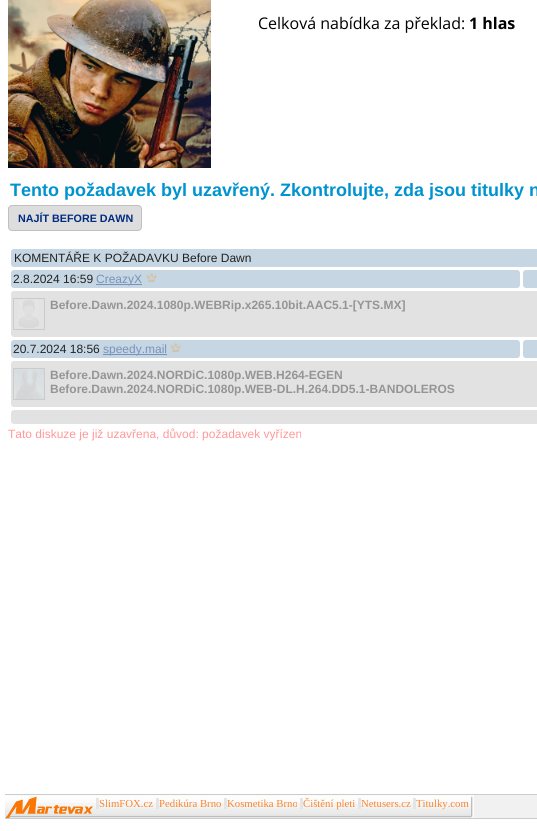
#include <cairo.h>
#include <math.h>
#include <stddef.h>


static void round_rect(cairo_t *cr, double x, double y, double w, double h, double r) {
    cairo_new_sub_path(cr);
    cairo_arc(cr, x + w - r, y + h - r, r, 0, M_PI / 2);
    cairo_arc(cr, x + r, y + h - r, r, M_PI / 2, M_PI);
    cairo_arc(cr, x + r, y + r, r, M_PI, 1.5 * M_PI);
    cairo_arc(cr, x + w - r, y + r, r, 1.5 * M_PI, 2 * M_PI);
    cairo_close_path(cr);
}

static void picture(cairo_t *cr, const char *path, double x, double y, double w, double h) {
    cairo_surface_t *image = cairo_image_surface_create_from_png(path);
    cairo_save(cr);
    cairo_set_source_surface(cr, image, x, y);
    cairo_rectangle(cr, x, y, w, h);
    cairo_fill(cr);
    cairo_restore(cr);
    cairo_surface_destroy(image);
}

int main(void) {
    cairo_surface_t *surface = cairo_image_surface_create(CAIRO_FORMAT_RGB24, 537, 831);
    cairo_t *cr = cairo_create(surface);
    cairo_font_options_t *options = cairo_font_options_create();
    cairo_font_options_set_hint_metrics(options, CAIRO_HINT_METRICS_OFF);
    cairo_font_options_set_hint_style(options, CAIRO_HINT_STYLE_NONE);
    cairo_set_font_options(cr, options);
    cairo_set_miter_limit(cr, 4);
    cairo_set_source_rgb(cr, 1, 1, 1);
    cairo_paint(cr);
    picture(cr, "img1.png", 8, 0, 203, 168);
    cairo_select_font_face(cr, "Open Sans", CAIRO_FONT_SLANT_NORMAL, CAIRO_FONT_WEIGHT_NORMAL);
    cairo_set_font_size(cr, 16);
    cairo_set_source_rgb(cr, 0, 0, 0);
    cairo_move_to(cr, 258, 29);
    cairo_show_text(cr, "Celková nabídka za překlad:");
    cairo_select_font_face(cr, "Open Sans", CAIRO_FONT_SLANT_NORMAL, CAIRO_FONT_WEIGHT_BOLD);
    cairo_move_to(cr, 469, 29);
    cairo_show_text(cr, "1 hlas");
    cairo_select_font_face(cr, "Liberation Sans", CAIRO_FONT_SLANT_NORMAL, CAIRO_FONT_WEIGHT_BOLD);
    cairo_set_font_size(cr, 18);
    cairo_set_source_rgb(cr, 0, 0.576, 0.816);
    cairo_move_to(cr, 10, 196);
    cairo_show_text(cr, "Tento požadavek byl uzavřený. Zkontrolujte, zda jsou titulky n");
    cairo_set_source_rgb(cr, 0.867, 0.867, 0.867);
    round_rect(cr, 8.5, 205.5, 133, 25, 3.5);
    cairo_fill_preserve(cr);
    cairo_set_source_rgb(cr, 0.753, 0.753, 0.753);
    cairo_set_line_width(cr, 1);
    cairo_stroke(cr);
    cairo_set_font_size(cr, 10.75);
    cairo_set_source_rgb(cr, 0, 0.169, 0.506);
    cairo_move_to(cr, 18, 222);
    cairo_show_text(cr, "NAJÍT BEFORE DAWN");
    cairo_set_source_rgb(cr, 0.776, 0.839, 0.89);
    round_rect(cr, 11, 249, 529, 18, 3);
    cairo_fill(cr);
    cairo_select_font_face(cr, "Liberation Sans", CAIRO_FONT_SLANT_NORMAL, CAIRO_FONT_WEIGHT_NORMAL);
    cairo_set_font_size(cr, 12);
    cairo_set_source_rgb(cr, 0.133, 0.133, 0.133);
    cairo_move_to(cr, 14, 262);
    cairo_show_text(cr, "KOMENTÁŘE K POŽADAVKU Before Dawn");
    cairo_set_source_rgb(cr, 0.776, 0.839, 0.89);
    round_rect(cr, 11, 270, 509, 18, 3);
    cairo_fill(cr);
    cairo_set_source_rgb(cr, 0.133, 0.133, 0.133);
    cairo_move_to(cr, 13, 283);
    cairo_show_text(cr, "2.8.2024 16:59");
    cairo_set_source_rgb(cr, 0.467, 0.573, 0.737);
    cairo_rectangle(cr, 96, 284, 46, 1);
    cairo_fill(cr);
    cairo_move_to(cr, 96, 283);
    cairo_show_text(cr, "CreazyX");
    picture(cr, "img2.png", 146, 273, 11, 10);
    cairo_set_source_rgb(cr, 0.776, 0.839, 0.89);
    round_rect(cr, 523, 270, 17, 18, 3);
    cairo_fill(cr);
    cairo_set_source_rgb(cr, 0.886, 0.886, 0.886);
    round_rect(cr, 11, 291, 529, 46, 3);
    cairo_fill(cr);
    cairo_rectangle(cr, 13.5, 298.5, 31, 31);
    cairo_set_source_rgb(cr, 0.796, 0.796, 0.796);
    cairo_stroke(cr);
    picture(cr, "img3.png", 18, 300, 21, 28);
    cairo_select_font_face(cr, "Liberation Sans", CAIRO_FONT_SLANT_NORMAL, CAIRO_FONT_WEIGHT_BOLD);
    cairo_set_source_rgb(cr, 0.584, 0.584, 0.584);
    cairo_move_to(cr, 50, 309);
    cairo_show_text(cr, "Before.Dawn.2024.1080p.WEBRip.x265.10bit.AAC5.1-[YTS.MX]");
    cairo_set_source_rgb(cr, 0.776, 0.839, 0.89);
    round_rect(cr, 11, 340, 509, 18, 3);
    cairo_fill(cr);
    cairo_select_font_face(cr, "Liberation Sans", CAIRO_FONT_SLANT_NORMAL, CAIRO_FONT_WEIGHT_NORMAL);
    cairo_set_source_rgb(cr, 0.133, 0.133, 0.133);
    cairo_move_to(cr, 13, 353);
    cairo_show_text(cr, "20.7.2024 18:56");
    cairo_set_source_rgb(cr, 0.467, 0.573, 0.737);
    cairo_rectangle(cr, 103, 354, 64, 1);
    cairo_fill(cr);
    cairo_move_to(cr, 103, 353);
    cairo_show_text(cr, "speedy.mail");
    picture(cr, "img4.png", 170, 343, 11, 10);
    cairo_set_source_rgb(cr, 0.776, 0.839, 0.89);
    round_rect(cr, 523, 340, 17, 18, 3);
    cairo_fill(cr);
    cairo_set_source_rgb(cr, 0.886, 0.886, 0.886);
    round_rect(cr, 11, 361, 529, 46, 3);
    cairo_fill(cr);
    cairo_rectangle(cr, 13.5, 368.5, 31, 31);
    cairo_set_source_rgb(cr, 0.796, 0.796, 0.796);
    cairo_stroke(cr);
    picture(cr, "img5.png", 14, 369, 30, 30);
    cairo_select_font_face(cr, "Liberation Sans", CAIRO_FONT_SLANT_NORMAL, CAIRO_FONT_WEIGHT_BOLD);
    cairo_set_source_rgb(cr, 0.584, 0.584, 0.584);
    cairo_move_to(cr, 50, 379);
    cairo_show_text(cr, "Before.Dawn.2024.NORDiC.1080p.WEB.H264-EGEN");
    cairo_move_to(cr, 50, 393);
    cairo_show_text(cr, "Before.Dawn.2024.NORDiC.1080p.WEB-DL.H.264.DD5.1-BANDOLEROS");
    cairo_set_source_rgb(cr, 0.886, 0.886, 0.886);
    round_rect(cr, 11, 410, 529, 14, 3);
    cairo_fill(cr);
    cairo_select_font_face(cr, "Liberation Sans", CAIRO_FONT_SLANT_NORMAL, CAIRO_FONT_WEIGHT_NORMAL);
    cairo_set_source_rgb(cr, 1, 0.6, 0.6);
    cairo_move_to(cr, 8, 438);
    cairo_show_text(cr, "Tato diskuze je již uzavřena, důvod: požadavek vyřízen");
    cairo_set_source_rgb(cr, 0.945, 0.945, 0.945);
    cairo_rectangle(cr, 474, 795, 63, 23);
    cairo_fill(cr);
    cairo_set_source_rgb(cr, 0.8, 0.8, 0.8);
    cairo_rectangle(cr, 5, 794, 532, 1);
    cairo_fill(cr);
    cairo_rectangle(cr, 5, 818, 532, 1);
    cairo_fill(cr);
    picture(cr, "img6.png", 5, 795, 89, 23);
    picture(cr, "img7.png", 94, 795, 375, 23);
    cairo_select_font_face(cr, "Liberation Serif", CAIRO_FONT_SLANT_NORMAL, CAIRO_FONT_WEIGHT_NORMAL);
    cairo_set_font_size(cr, 10.75);
    cairo_set_source_rgb(cr, 0.976, 0.522, 0.176);
    cairo_move_to(cr, 99, 807);
    cairo_show_text(cr, "SlimFOX.cz");
    cairo_set_source_rgb(cr, 0.898, 0.898, 0.898);
    cairo_rectangle(cr, 96, 798, 3, 11);
    cairo_fill(cr);
    cairo_rectangle(cr, 156, 798, 3, 11);
    cairo_fill(cr);
    cairo_set_source_rgb(cr, 0.976, 0.522, 0.176);
    cairo_move_to(cr, 159, 807);
    cairo_show_text(cr, "Pedikúra Brno");
    cairo_set_source_rgb(cr, 0.898, 0.898, 0.898);
    cairo_rectangle(cr, 224, 798, 3, 11);
    cairo_fill(cr);
    cairo_set_source_rgb(cr, 0.976, 0.522, 0.176);
    cairo_move_to(cr, 227, 807);
    cairo_show_text(cr, "Kosmetika Brno");
    cairo_move_to(cr, 303, 807);
    cairo_show_text(cr, "Čištění pleti");
    cairo_set_source_rgb(cr, 0.898, 0.898, 0.898);
    cairo_rectangle(cr, 300, 798, 3, 11);
    cairo_fill(cr);
    cairo_rectangle(cr, 358, 798, 3, 11);
    cairo_fill(cr);
    cairo_set_source_rgb(cr, 0.976, 0.522, 0.176);
    cairo_move_to(cr, 361, 807);
    cairo_show_text(cr, "Netusers.cz");
    cairo_move_to(cr, 416, 807);
    cairo_show_text(cr, "Titulky.com");
    cairo_set_source_rgb(cr, 0.898, 0.898, 0.898);
    cairo_rectangle(cr, 413, 798, 3, 11);
    cairo_fill(cr);
    picture(cr, "img8.png", 469, 795, 5, 23);
    cairo_surface_write_to_png(surface, "page.png");
    cairo_font_options_destroy(options);
    cairo_destroy(cr);
    cairo_surface_destroy(surface);
    return 0;
}
